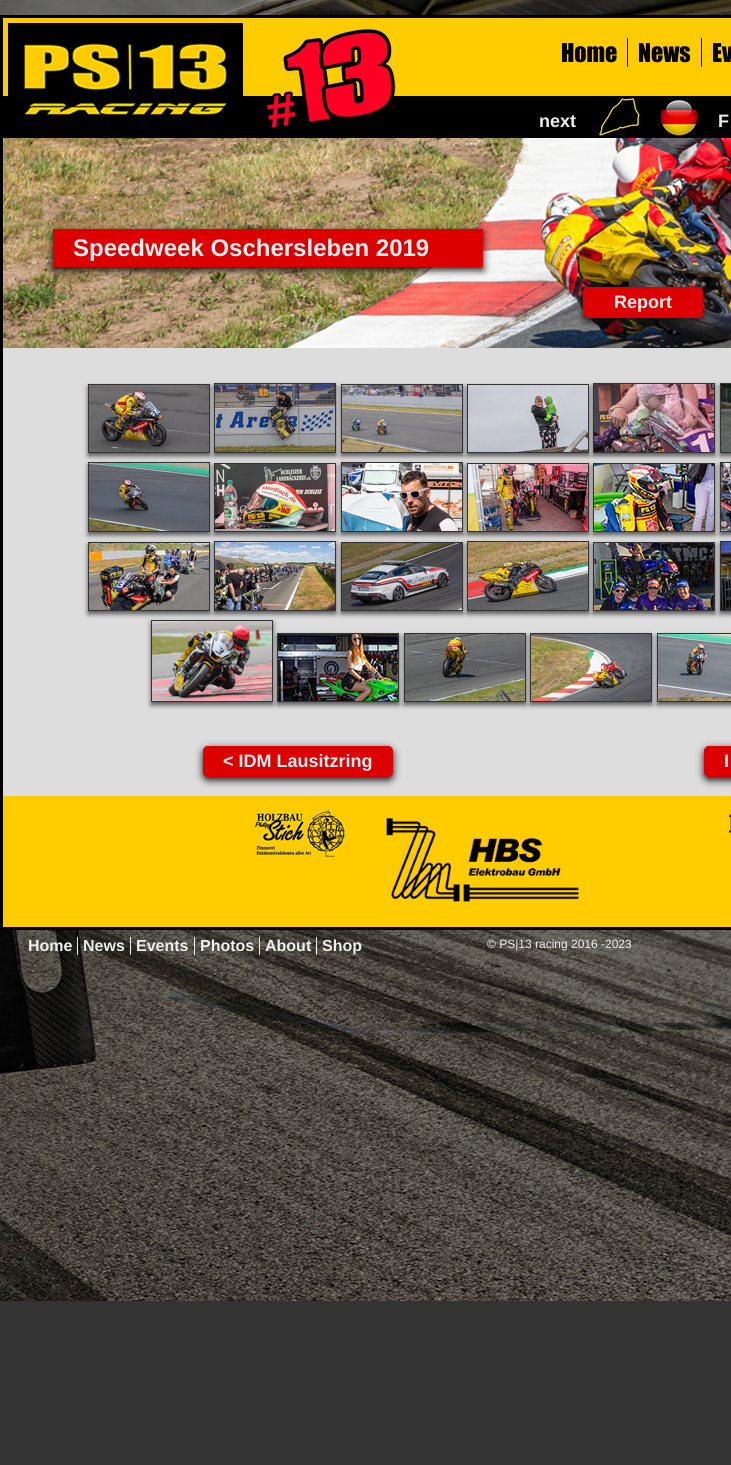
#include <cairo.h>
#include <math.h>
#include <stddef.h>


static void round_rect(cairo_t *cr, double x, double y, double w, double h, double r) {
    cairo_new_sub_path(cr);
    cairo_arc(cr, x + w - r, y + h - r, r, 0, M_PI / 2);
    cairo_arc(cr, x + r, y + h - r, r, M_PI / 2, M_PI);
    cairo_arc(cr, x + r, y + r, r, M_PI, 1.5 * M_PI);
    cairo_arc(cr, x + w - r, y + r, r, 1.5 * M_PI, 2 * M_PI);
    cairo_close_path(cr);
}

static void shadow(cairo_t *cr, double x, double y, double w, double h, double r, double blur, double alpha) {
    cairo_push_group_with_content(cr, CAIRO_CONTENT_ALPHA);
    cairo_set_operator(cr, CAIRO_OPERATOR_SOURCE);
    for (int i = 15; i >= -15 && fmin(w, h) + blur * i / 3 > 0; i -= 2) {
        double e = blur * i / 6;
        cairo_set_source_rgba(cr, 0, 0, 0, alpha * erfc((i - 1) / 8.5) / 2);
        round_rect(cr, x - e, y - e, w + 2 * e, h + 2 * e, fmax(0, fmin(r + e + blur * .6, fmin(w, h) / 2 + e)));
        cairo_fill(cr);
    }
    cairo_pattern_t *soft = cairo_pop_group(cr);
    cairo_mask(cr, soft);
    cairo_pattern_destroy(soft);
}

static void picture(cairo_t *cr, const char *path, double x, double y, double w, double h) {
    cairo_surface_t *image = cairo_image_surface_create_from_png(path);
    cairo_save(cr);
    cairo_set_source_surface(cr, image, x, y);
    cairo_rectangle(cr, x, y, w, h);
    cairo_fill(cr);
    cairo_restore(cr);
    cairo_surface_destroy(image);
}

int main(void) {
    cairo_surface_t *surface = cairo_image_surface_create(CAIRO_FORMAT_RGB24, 731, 1465);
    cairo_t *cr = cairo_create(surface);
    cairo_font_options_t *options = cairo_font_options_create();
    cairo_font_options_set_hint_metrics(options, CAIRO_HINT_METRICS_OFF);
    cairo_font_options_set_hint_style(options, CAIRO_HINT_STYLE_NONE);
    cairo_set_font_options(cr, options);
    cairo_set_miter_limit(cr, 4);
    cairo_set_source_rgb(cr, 0.2, 0.2, 0.2);
    cairo_paint(cr);
    picture(cr, "img1.png", 0, 0, 731, 1301);
    cairo_rectangle(cr, 1.5, 16.5, 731, 912);
    cairo_set_source_rgb(cr, 0, 0, 0);
    cairo_set_line_width(cr, 3);
    cairo_stroke(cr);
    cairo_set_source_rgb(cr, 1, 0.8, 0);
    cairo_rectangle(cr, 3, 18, 728, 78);
    cairo_fill(cr);
    cairo_set_source_rgb(cr, 0, 0, 0);
    cairo_rectangle(cr, 3, 96, 728, 42);
    cairo_fill(cr);
    picture(cr, "img2.png", 8, 23, 235, 93);
    picture(cr, "img3.png", 267, 28, 129, 100);
    cairo_rectangle(cr, 627, 38, 1, 29);
    cairo_fill(cr);
    cairo_select_font_face(cr, "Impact", CAIRO_FONT_SLANT_NORMAL, CAIRO_FONT_WEIGHT_NORMAL);
    cairo_set_font_size(cr, 24);
    cairo_move_to(cr, 561, 62);
    cairo_show_text(cr, "Home");
    cairo_rectangle(cr, 701, 38, 1, 29);
    cairo_fill(cr);
    cairo_move_to(cr, 638, 62);
    cairo_show_text(cr, "News");
    cairo_move_to(cr, 712, 62);
    cairo_show_text(cr, "Ev");
    cairo_select_font_face(cr, "Liberation Sans", CAIRO_FONT_SLANT_NORMAL, CAIRO_FONT_WEIGHT_BOLD);
    cairo_set_font_size(cr, 18);
    cairo_set_source_rgb(cr, 0.933, 0.933, 0.933);
    cairo_move_to(cr, 539, 127);
    cairo_show_text(cr, "next");
    picture(cr, "img4.png", 599, 98, 41, 38);
    picture(cr, "img5.png", 660, 99, 38, 37);
    cairo_move_to(cr, 718, 127);
    cairo_show_text(cr, "F");
    picture(cr, "img6.png", 3, 138, 728, 210);
    cairo_set_source_rgb(cr, 0.067, 0.067, 0.067);
    shadow(cr, 53, 232, 430, 38, 0, 4, 1);
    cairo_set_source_rgb(cr, 0.867, 0, 0);
    cairo_rectangle(cr, 53, 229, 430, 38);
    cairo_fill(cr);
    cairo_set_font_size(cr, 24);
    cairo_set_source_rgb(cr, 0.933, 0.933, 0.933);
    cairo_move_to(cr, 73, 256);
    cairo_show_text(cr, "Speedweek Oschersleben 2019");
    cairo_set_source_rgb(cr, 0.067, 0.067, 0.067);
    shadow(cr, 583, 290, 120, 31, 5, 4, 1);
    cairo_set_source_rgb(cr, 0.867, 0, 0);
    round_rect(cr, 583, 287, 120, 31, 5);
    cairo_fill(cr);
    cairo_set_font_size(cr, 18);
    cairo_set_source_rgb(cr, 0.933, 0.933, 0.933);
    cairo_move_to(cr, 614, 308);
    cairo_show_text(cr, "Report");
    cairo_set_source_rgb(cr, 0.867, 0.867, 0.867);
    cairo_rectangle(cr, 3, 348, 728, 448);
    cairo_fill(cr);
    cairo_set_source_rgb(cr, 0.333, 0.333, 0.333);
    shadow(cr, 88, 387, 122, 69, 0, 2.5, 1);
    cairo_rectangle(cr, 88.5, 384.5, 121, 68);
    cairo_set_source_rgb(cr, 0.2, 0.2, 0.2);
    cairo_set_line_width(cr, 1);
    cairo_stroke(cr);
    picture(cr, "img9.png", 89, 385, 120, 67);
    cairo_set_source_rgb(cr, 0.333, 0.333, 0.333);
    shadow(cr, 214, 386, 122, 70, 0, 2.5, 1);
    cairo_rectangle(cr, 214.5, 383.5, 121, 69);
    cairo_set_source_rgb(cr, 0.2, 0.2, 0.2);
    cairo_stroke(cr);
    picture(cr, "img7.png", 215, 384, 120, 68);
    cairo_set_source_rgb(cr, 0.333, 0.333, 0.333);
    shadow(cr, 341, 387, 122, 69, 0, 2.5, 1);
    cairo_rectangle(cr, 341.5, 384.5, 121, 68);
    cairo_set_source_rgb(cr, 0.2, 0.2, 0.2);
    cairo_stroke(cr);
    picture(cr, "img10.png", 342, 385, 120, 67);
    cairo_set_source_rgb(cr, 0.333, 0.333, 0.333);
    shadow(cr, 467, 387, 122, 69, 0, 2.5, 1);
    cairo_rectangle(cr, 467.5, 384.5, 121, 68);
    cairo_set_source_rgb(cr, 0.2, 0.2, 0.2);
    cairo_stroke(cr);
    picture(cr, "img11.png", 468, 385, 120, 67);
    cairo_set_source_rgb(cr, 0.333, 0.333, 0.333);
    shadow(cr, 593, 386, 122, 70, 0, 2.5, 1);
    cairo_rectangle(cr, 593.5, 383.5, 121, 69);
    cairo_set_source_rgb(cr, 0.2, 0.2, 0.2);
    cairo_stroke(cr);
    picture(cr, "img8.png", 594, 384, 120, 68);
    cairo_set_source_rgb(cr, 0.333, 0.333, 0.333);
    shadow(cr, 720, 386, 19, 70, 0, 2.5, 1);
    cairo_rectangle(cr, 720.5, 383.5, 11, 69);
    cairo_set_source_rgb(cr, 0.2, 0.2, 0.2);
    cairo_stroke(cr);
    picture(cr, "img12.png", 721, 384, 10, 68);
    cairo_set_source_rgb(cr, 0.333, 0.333, 0.333);
    shadow(cr, 88, 465, 122, 70, 0, 2.5, 1);
    cairo_rectangle(cr, 88.5, 462.5, 121, 69);
    cairo_set_source_rgb(cr, 0.2, 0.2, 0.2);
    cairo_stroke(cr);
    picture(cr, "img13.png", 89, 463, 120, 68);
    cairo_set_source_rgb(cr, 0.333, 0.333, 0.333);
    shadow(cr, 214, 466, 122, 69, 0, 2.5, 1);
    cairo_rectangle(cr, 214.5, 463.5, 121, 68);
    cairo_set_source_rgb(cr, 0.2, 0.2, 0.2);
    cairo_stroke(cr);
    picture(cr, "img16.png", 215, 464, 120, 67);
    cairo_set_source_rgb(cr, 0.333, 0.333, 0.333);
    shadow(cr, 341, 465, 122, 70, 0, 2.5, 1);
    cairo_rectangle(cr, 341.5, 462.5, 121, 69);
    cairo_set_source_rgb(cr, 0.2, 0.2, 0.2);
    cairo_stroke(cr);
    picture(cr, "img14.png", 342, 463, 120, 68);
    cairo_set_source_rgb(cr, 0.333, 0.333, 0.333);
    shadow(cr, 467, 466, 122, 69, 0, 2.5, 1);
    cairo_rectangle(cr, 467.5, 463.5, 121, 68);
    cairo_set_source_rgb(cr, 0.2, 0.2, 0.2);
    cairo_stroke(cr);
    picture(cr, "img17.png", 468, 464, 120, 67);
    cairo_set_source_rgb(cr, 0.333, 0.333, 0.333);
    shadow(cr, 593, 466, 122, 69, 0, 2.5, 1);
    cairo_rectangle(cr, 593.5, 463.5, 121, 68);
    cairo_set_source_rgb(cr, 0.2, 0.2, 0.2);
    cairo_stroke(cr);
    picture(cr, "img18.png", 594, 464, 120, 67);
    cairo_set_source_rgb(cr, 0.333, 0.333, 0.333);
    shadow(cr, 720, 465, 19, 70, 0, 2.5, 1);
    cairo_rectangle(cr, 720.5, 462.5, 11, 69);
    cairo_set_source_rgb(cr, 0.2, 0.2, 0.2);
    cairo_stroke(cr);
    picture(cr, "img15.png", 721, 463, 10, 68);
    cairo_set_source_rgb(cr, 0.333, 0.333, 0.333);
    shadow(cr, 88, 545, 122, 69, 0, 2.5, 1);
    cairo_rectangle(cr, 88.5, 542.5, 121, 68);
    cairo_set_source_rgb(cr, 0.2, 0.2, 0.2);
    cairo_stroke(cr);
    picture(cr, "img19.png", 89, 543, 120, 67);
    cairo_set_source_rgb(cr, 0.333, 0.333, 0.333);
    shadow(cr, 214, 544, 122, 70, 0, 2.5, 1);
    cairo_rectangle(cr, 214.5, 541.5, 121, 69);
    cairo_set_source_rgb(cr, 0.2, 0.2, 0.2);
    cairo_stroke(cr);
    picture(cr, "img20.png", 215, 542, 120, 68);
    cairo_set_source_rgb(cr, 0.333, 0.333, 0.333);
    shadow(cr, 341, 545, 122, 69, 0, 2.5, 1);
    cairo_rectangle(cr, 341.5, 542.5, 121, 68);
    cairo_set_source_rgb(cr, 0.2, 0.2, 0.2);
    cairo_stroke(cr);
    picture(cr, "img23.png", 342, 543, 120, 67);
    cairo_set_source_rgb(cr, 0.333, 0.333, 0.333);
    shadow(cr, 467, 544, 122, 70, 0, 2.5, 1);
    cairo_rectangle(cr, 467.5, 541.5, 121, 69);
    cairo_set_source_rgb(cr, 0.2, 0.2, 0.2);
    cairo_stroke(cr);
    picture(cr, "img21.png", 468, 542, 120, 68);
    cairo_set_source_rgb(cr, 0.333, 0.333, 0.333);
    shadow(cr, 593, 545, 122, 69, 0, 2.5, 1);
    cairo_rectangle(cr, 593.5, 542.5, 121, 68);
    cairo_set_source_rgb(cr, 0.2, 0.2, 0.2);
    cairo_stroke(cr);
    picture(cr, "img24.png", 594, 543, 120, 67);
    cairo_set_source_rgb(cr, 0.333, 0.333, 0.333);
    shadow(cr, 720, 544, 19, 70, 0, 2.5, 1);
    cairo_rectangle(cr, 720.5, 541.5, 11, 69);
    cairo_set_source_rgb(cr, 0.2, 0.2, 0.2);
    cairo_stroke(cr);
    picture(cr, "img22.png", 721, 542, 10, 68);
    cairo_set_source_rgb(cr, 0.333, 0.333, 0.333);
    shadow(cr, 151, 623, 122, 82, 0, 2.5, 1);
    cairo_rectangle(cr, 151.5, 620.5, 121, 81);
    cairo_set_source_rgb(cr, 0.2, 0.2, 0.2);
    cairo_stroke(cr);
    picture(cr, "img25.png", 152, 621, 120, 80);
    cairo_set_source_rgb(cr, 0.333, 0.333, 0.333);
    shadow(cr, 277, 636, 122, 69, 0, 2.5, 1);
    cairo_rectangle(cr, 277.5, 633.5, 121, 68);
    cairo_set_source_rgb(cr, 0.2, 0.2, 0.2);
    cairo_stroke(cr);
    picture(cr, "img26.png", 278, 634, 120, 67);
    cairo_set_source_rgb(cr, 0.333, 0.333, 0.333);
    shadow(cr, 404, 636, 122, 69, 0, 2.5, 1);
    cairo_rectangle(cr, 404.5, 633.5, 121, 68);
    cairo_set_source_rgb(cr, 0.2, 0.2, 0.2);
    cairo_stroke(cr);
    picture(cr, "img27.png", 405, 634, 120, 67);
    cairo_set_source_rgb(cr, 0.333, 0.333, 0.333);
    shadow(cr, 530, 636, 122, 69, 0, 2.5, 1);
    cairo_rectangle(cr, 530.5, 633.5, 121, 68);
    cairo_set_source_rgb(cr, 0.2, 0.2, 0.2);
    cairo_stroke(cr);
    picture(cr, "img28.png", 531, 634, 120, 67);
    cairo_set_source_rgb(cr, 0.333, 0.333, 0.333);
    shadow(cr, 657, 636, 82, 69, 0, 2.5, 1);
    cairo_rectangle(cr, 657.5, 633.5, 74, 68);
    cairo_set_source_rgb(cr, 0.2, 0.2, 0.2);
    cairo_stroke(cr);
    picture(cr, "img29.png", 658, 634, 73, 67);
    cairo_set_source_rgb(cr, 0.067, 0.067, 0.067);
    shadow(cr, 203, 749, 190, 31, 5, 4, 1);
    cairo_set_source_rgb(cr, 0.867, 0, 0);
    round_rect(cr, 203, 746, 190, 31, 5);
    cairo_fill(cr);
    cairo_set_source_rgb(cr, 0.933, 0.933, 0.933);
    cairo_move_to(cr, 223, 767);
    cairo_show_text(cr, "< IDM Lausitzring");
    cairo_set_source_rgb(cr, 0.067, 0.067, 0.067);
    shadow(cr, 704, 749, 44, 31, 5, 4, 1);
    cairo_set_source_rgb(cr, 0.867, 0, 0);
    round_rect(cr, 704, 746, 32, 31, 5);
    cairo_fill(cr);
    cairo_set_source_rgb(cr, 0.933, 0.933, 0.933);
    cairo_move_to(cr, 724, 767);
    cairo_show_text(cr, "I");
    cairo_set_source_rgb(cr, 1, 0.8, 0);
    cairo_rectangle(cr, 3, 796, 728, 131);
    cairo_fill(cr);
    picture(cr, "img30.png", 255, 810, 90, 47);
    picture(cr, "img31.png", 386, 818, 193, 84);
    picture(cr, "img32.png", 729, 814, 2, 19);
    cairo_set_source_rgb(cr, 0.933, 0.933, 0.933);
    cairo_rectangle(cr, 77, 937, 1, 18);
    cairo_fill(cr);
    cairo_set_font_size(cr, 16);
    cairo_move_to(cr, 28, 951);
    cairo_show_text(cr, "Home");
    cairo_rectangle(cr, 130, 937, 1, 18);
    cairo_fill(cr);
    cairo_move_to(cr, 83, 951);
    cairo_show_text(cr, "News");
    cairo_rectangle(cr, 194, 937, 1, 18);
    cairo_fill(cr);
    cairo_move_to(cr, 136, 951);
    cairo_show_text(cr, "Events");
    cairo_rectangle(cr, 259, 937, 1, 18);
    cairo_fill(cr);
    cairo_move_to(cr, 200, 951);
    cairo_show_text(cr, "Photos");
    cairo_rectangle(cr, 316, 937, 1, 18);
    cairo_fill(cr);
    cairo_move_to(cr, 265, 951);
    cairo_show_text(cr, "About");
    cairo_move_to(cr, 322, 951);
    cairo_show_text(cr, "Shop");
    cairo_select_font_face(cr, "Liberation Sans", CAIRO_FONT_SLANT_NORMAL, CAIRO_FONT_WEIGHT_NORMAL);
    cairo_set_font_size(cr, 12);
    cairo_move_to(cr, 487, 948);
    cairo_show_text(cr, "© PS|13 racing 2016 -2023");
    cairo_surface_write_to_png(surface, "page.png");
    cairo_font_options_destroy(options);
    cairo_destroy(cr);
    cairo_surface_destroy(surface);
    return 0;
}
